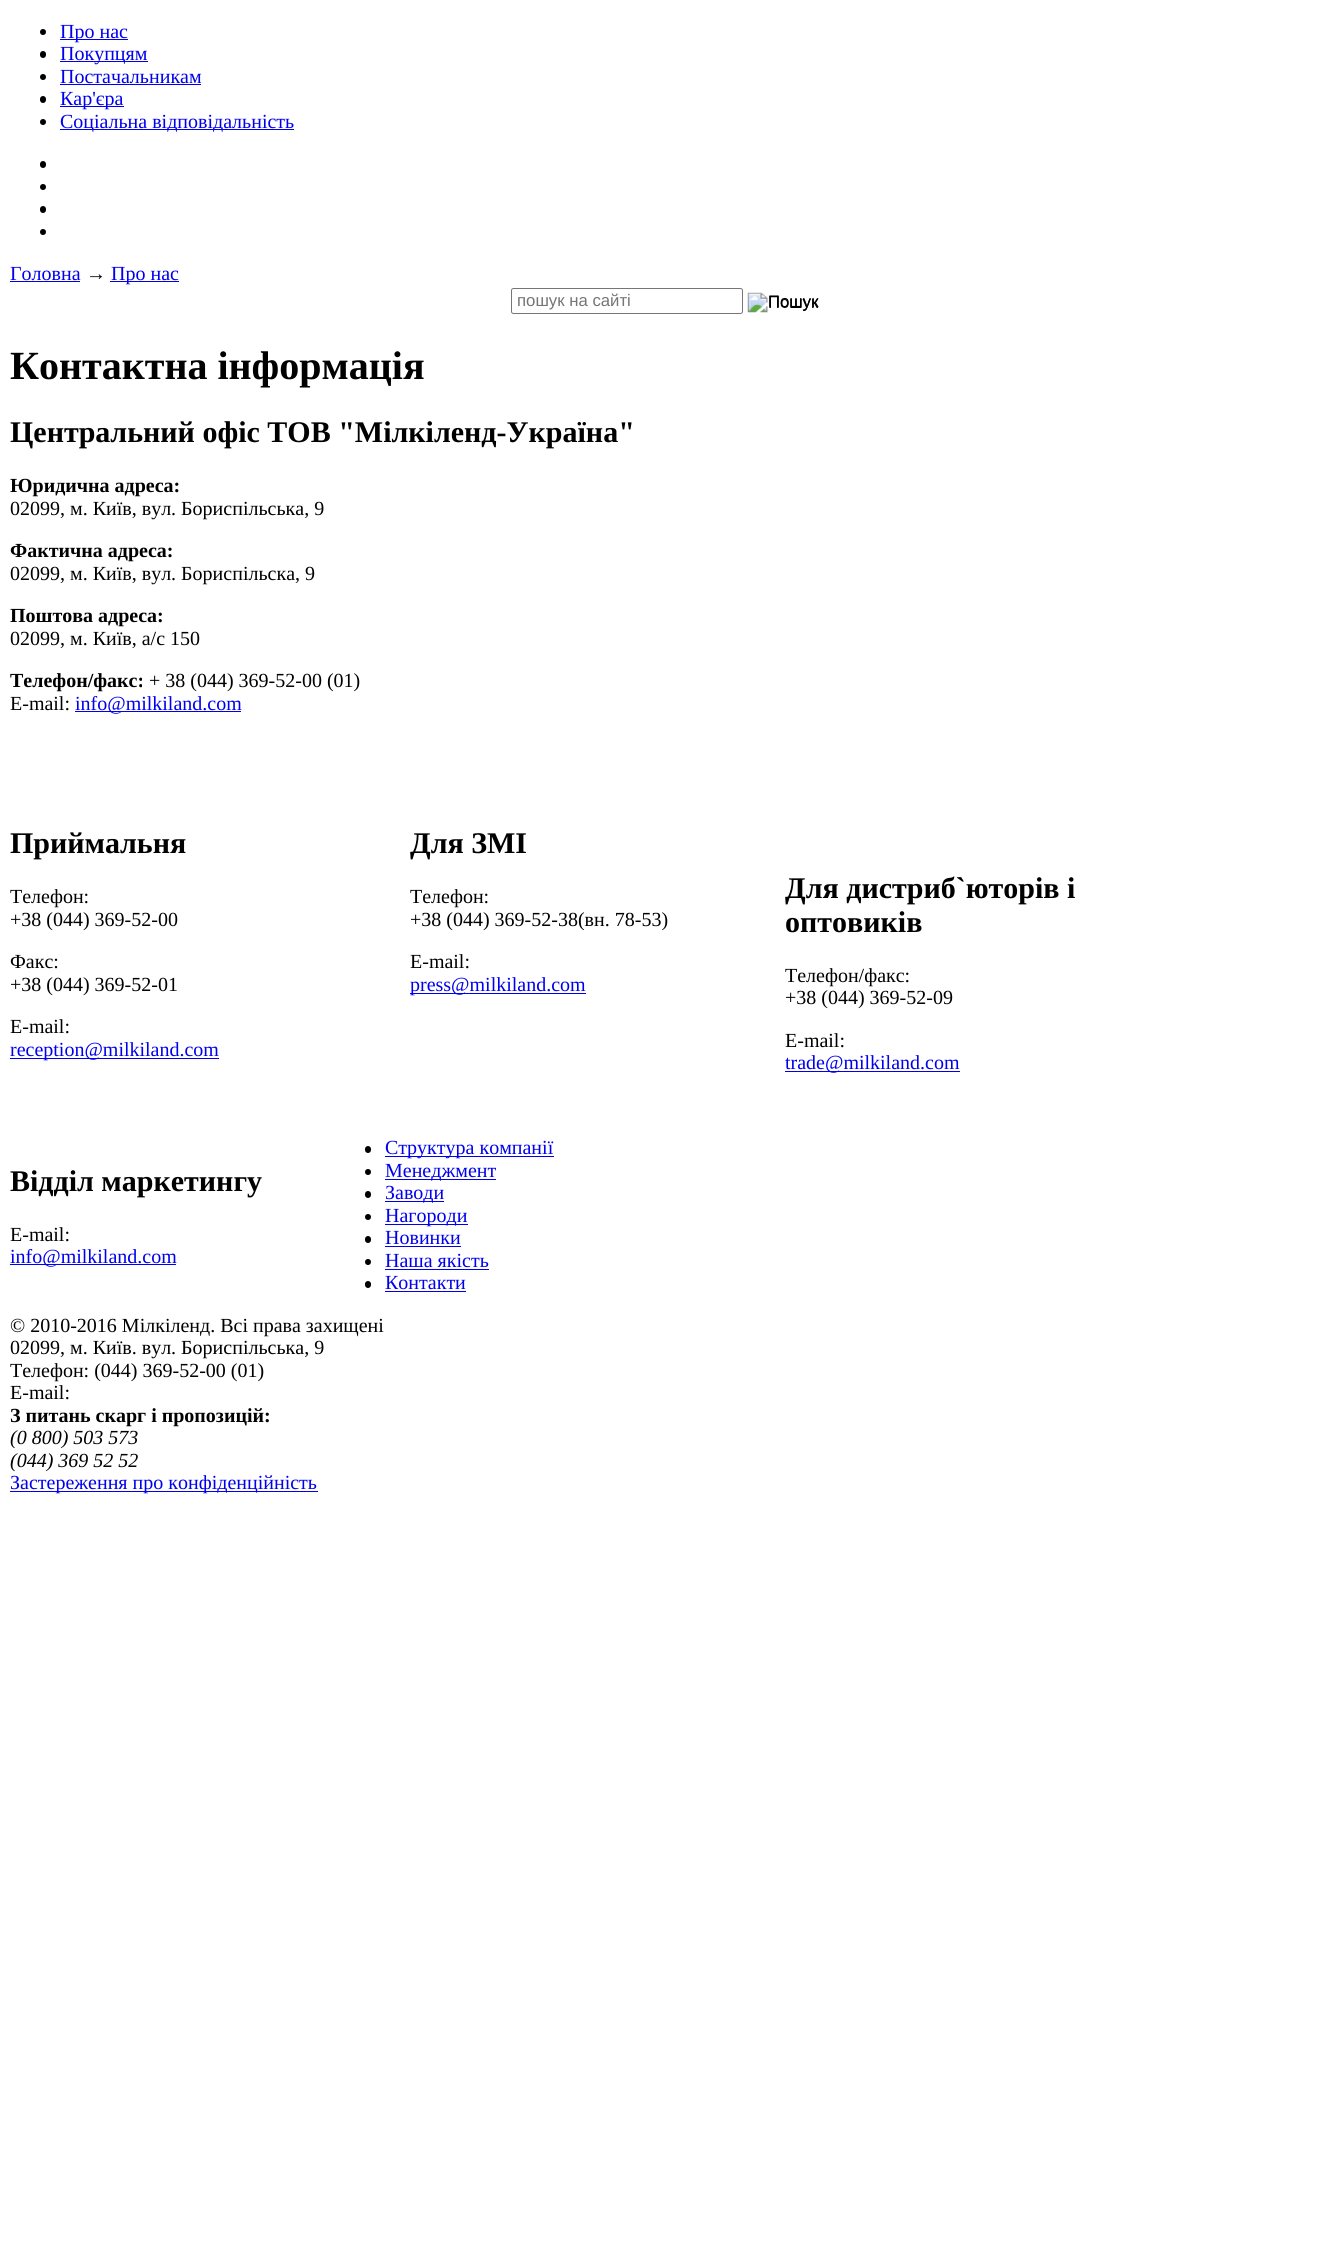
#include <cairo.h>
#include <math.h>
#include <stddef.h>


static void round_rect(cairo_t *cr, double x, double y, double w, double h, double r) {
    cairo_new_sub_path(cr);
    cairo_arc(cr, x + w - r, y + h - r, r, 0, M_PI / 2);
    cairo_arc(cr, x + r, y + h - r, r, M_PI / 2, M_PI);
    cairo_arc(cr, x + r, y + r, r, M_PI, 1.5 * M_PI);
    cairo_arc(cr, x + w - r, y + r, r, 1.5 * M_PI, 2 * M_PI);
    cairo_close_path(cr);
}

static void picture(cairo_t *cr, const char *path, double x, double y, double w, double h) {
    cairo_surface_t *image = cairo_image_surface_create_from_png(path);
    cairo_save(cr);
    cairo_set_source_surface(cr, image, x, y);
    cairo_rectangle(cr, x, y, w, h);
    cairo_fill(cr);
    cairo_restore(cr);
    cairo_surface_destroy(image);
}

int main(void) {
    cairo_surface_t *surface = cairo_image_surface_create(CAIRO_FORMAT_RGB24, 1330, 2266);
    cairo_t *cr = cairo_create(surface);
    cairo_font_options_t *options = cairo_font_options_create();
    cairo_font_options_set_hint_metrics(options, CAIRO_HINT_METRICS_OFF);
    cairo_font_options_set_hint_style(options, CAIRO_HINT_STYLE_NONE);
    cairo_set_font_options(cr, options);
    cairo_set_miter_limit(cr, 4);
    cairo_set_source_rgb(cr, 1, 1, 1);
    cairo_paint(cr);
    cairo_set_source_rgb(cr, 0, 0, 0);
    cairo_arc(cr, 43, 32, 3, 0, 2 * M_PI);
    cairo_fill(cr);
    cairo_set_source_rgb(cr, 0, 0, 0.933);
    cairo_rectangle(cr, 60, 39, 68, 1);
    cairo_fill(cr);
    cairo_select_font_face(cr, "Liberation Serif", CAIRO_FONT_SLANT_NORMAL, CAIRO_FONT_WEIGHT_NORMAL);
    cairo_set_font_size(cr, 20);
    cairo_move_to(cr, 60, 38);
    cairo_show_text(cr, "Про нас");
    cairo_set_source_rgb(cr, 0, 0, 0);
    round_rect(cr, 40, 51, 6, 7, 3);
    cairo_fill(cr);
    cairo_set_source_rgb(cr, 0, 0, 0.933);
    cairo_rectangle(cr, 60, 61, 88, 1);
    cairo_fill(cr);
    cairo_move_to(cr, 60, 60);
    cairo_show_text(cr, "Покупцям");
    cairo_set_source_rgb(cr, 0, 0, 0);
    cairo_new_path(cr);
    cairo_arc(cr, 43, 77, 3, 0, 2 * M_PI);
    cairo_fill(cr);
    cairo_set_source_rgb(cr, 0, 0, 0.933);
    cairo_move_to(cr, 60, 83);
    cairo_show_text(cr, "Постачальникам");
    cairo_rectangle(cr, 60, 84, 141, 1);
    cairo_fill(cr);
    cairo_set_source_rgb(cr, 0, 0, 0);
    round_rect(cr, 40, 96, 6, 7, 3);
    cairo_fill(cr);
    cairo_set_source_rgb(cr, 0, 0, 0.933);
    cairo_rectangle(cr, 60, 106, 64, 1);
    cairo_fill(cr);
    cairo_move_to(cr, 60, 105);
    cairo_show_text(cr, "Кар'єра");
    cairo_set_source_rgb(cr, 0, 0, 0);
    cairo_new_path(cr);
    cairo_arc(cr, 43, 122, 3, 0, 2 * M_PI);
    cairo_fill(cr);
    cairo_set_source_rgb(cr, 0, 0, 0.933);
    cairo_rectangle(cr, 60, 129, 234, 1);
    cairo_fill(cr);
    cairo_move_to(cr, 60, 128);
    cairo_show_text(cr, "Соціальна відповідальність");
    cairo_set_source_rgb(cr, 0, 0, 0);
    round_rect(cr, 40, 161, 6, 7, 3);
    cairo_fill(cr);
    cairo_arc(cr, 43, 187, 3, 0, 2 * M_PI);
    cairo_fill(cr);
    round_rect(cr, 40, 206, 6, 7, 3);
    cairo_fill(cr);
    cairo_arc(cr, 43, 232, 3, 0, 2 * M_PI);
    cairo_fill(cr);
    cairo_set_source_rgb(cr, 0, 0, 0.933);
    cairo_move_to(cr, 10, 280);
    cairo_show_text(cr, "Головна");
    cairo_rectangle(cr, 10, 281, 70, 1);
    cairo_fill(cr);
    cairo_set_source_rgb(cr, 0, 0, 0);
    cairo_move_to(cr, 86, 280);
    cairo_show_text(cr, "→");
    cairo_set_source_rgb(cr, 0, 0, 0.933);
    cairo_rectangle(cr, 110, 281, 69, 1);
    cairo_fill(cr);
    cairo_move_to(cr, 111, 280);
    cairo_show_text(cr, "Про нас");
    round_rect(cr, 511.5, 288.5, 231, 25, 2);
    cairo_set_source_rgb(cr, 0.463, 0.463, 0.463);
    cairo_set_line_width(cr, 1);
    cairo_stroke(cr);
    cairo_select_font_face(cr, "Liberation Sans", CAIRO_FONT_SLANT_NORMAL, CAIRO_FONT_WEIGHT_NORMAL);
    cairo_set_font_size(cr, 16.75);
    cairo_set_source_rgb(cr, 0.459, 0.459, 0.459);
    cairo_move_to(cr, 517, 306);
    cairo_show_text(cr, "пошук на сайті");
    picture(cr, "img1.png", 747, 292, 72, 21);
    cairo_set_source_rgb(cr, 0, 0, 0);
    cairo_move_to(cr, 768, 307);
    cairo_show_text(cr, "Пошук");
    cairo_select_font_face(cr, "Liberation Serif", CAIRO_FONT_SLANT_NORMAL, CAIRO_FONT_WEIGHT_BOLD);
    cairo_set_font_size(cr, 40);
    cairo_move_to(cr, 10, 379);
    cairo_show_text(cr, "Контактна інформація");
    cairo_set_font_size(cr, 30);
    cairo_move_to(cr, 10, 442);
    cairo_show_text(cr, "Центральний офіс ТОВ \"Мілкіленд-Україна\"");
    cairo_set_font_size(cr, 20);
    cairo_move_to(cr, 10, 492);
    cairo_show_text(cr, "Юридична адреса:");
    cairo_select_font_face(cr, "Liberation Serif", CAIRO_FONT_SLANT_NORMAL, CAIRO_FONT_WEIGHT_NORMAL);
    cairo_move_to(cr, 10, 515);
    cairo_show_text(cr, "02099, м. Київ, вул. Бориспільська, 9");
    cairo_select_font_face(cr, "Liberation Serif", CAIRO_FONT_SLANT_NORMAL, CAIRO_FONT_WEIGHT_BOLD);
    cairo_move_to(cr, 10, 557);
    cairo_show_text(cr, "Фактична адреса:");
    cairo_select_font_face(cr, "Liberation Serif", CAIRO_FONT_SLANT_NORMAL, CAIRO_FONT_WEIGHT_NORMAL);
    cairo_move_to(cr, 10, 580);
    cairo_show_text(cr, "02099, м. Київ, вул. Бориспільска, 9");
    cairo_select_font_face(cr, "Liberation Serif", CAIRO_FONT_SLANT_NORMAL, CAIRO_FONT_WEIGHT_BOLD);
    cairo_move_to(cr, 10, 622);
    cairo_show_text(cr, "Поштова адреса:");
    cairo_select_font_face(cr, "Liberation Serif", CAIRO_FONT_SLANT_NORMAL, CAIRO_FONT_WEIGHT_NORMAL);
    cairo_move_to(cr, 10, 645);
    cairo_show_text(cr, "02099, м. Київ, а/с 150");
    cairo_select_font_face(cr, "Liberation Serif", CAIRO_FONT_SLANT_NORMAL, CAIRO_FONT_WEIGHT_BOLD);
    cairo_move_to(cr, 10, 687);
    cairo_show_text(cr, "Телефон/факс:");
    cairo_select_font_face(cr, "Liberation Serif", CAIRO_FONT_SLANT_NORMAL, CAIRO_FONT_WEIGHT_NORMAL);
    cairo_move_to(cr, 149, 687);
    cairo_show_text(cr, "+ 38 (044) 369-52-00 (01)");
    cairo_move_to(cr, 10, 710);
    cairo_show_text(cr, "E-mail:");
    cairo_set_source_rgb(cr, 0, 0, 0.933);
    cairo_rectangle(cr, 75, 711, 166, 1);
    cairo_fill(cr);
    cairo_move_to(cr, 75, 710);
    cairo_show_text(cr, "info@milkiland.com");
    cairo_select_font_face(cr, "Liberation Serif", CAIRO_FONT_SLANT_NORMAL, CAIRO_FONT_WEIGHT_BOLD);
    cairo_set_font_size(cr, 30);
    cairo_set_source_rgb(cr, 0, 0, 0);
    cairo_move_to(cr, 10, 853);
    cairo_show_text(cr, "Приймальня");
    cairo_select_font_face(cr, "Liberation Serif", CAIRO_FONT_SLANT_NORMAL, CAIRO_FONT_WEIGHT_NORMAL);
    cairo_set_font_size(cr, 20);
    cairo_move_to(cr, 10, 903);
    cairo_show_text(cr, "Телефон:");
    cairo_move_to(cr, 10, 926);
    cairo_show_text(cr, "+38 (044) 369-52-00");
    cairo_move_to(cr, 10, 968);
    cairo_show_text(cr, "Факс:");
    cairo_move_to(cr, 10, 991);
    cairo_show_text(cr, "+38 (044) 369-52-01");
    cairo_move_to(cr, 10, 1033);
    cairo_show_text(cr, "E-mail:");
    cairo_set_source_rgb(cr, 0, 0, 0.933);
    cairo_rectangle(cr, 10, 1058, 209, 1);
    cairo_fill(cr);
    cairo_move_to(cr, 10, 1056);
    cairo_show_text(cr, "reception@milkiland.com");
    cairo_select_font_face(cr, "Liberation Serif", CAIRO_FONT_SLANT_NORMAL, CAIRO_FONT_WEIGHT_BOLD);
    cairo_set_font_size(cr, 30);
    cairo_set_source_rgb(cr, 0, 0, 0);
    cairo_move_to(cr, 410, 853);
    cairo_show_text(cr, "Для ЗМІ");
    cairo_select_font_face(cr, "Liberation Serif", CAIRO_FONT_SLANT_NORMAL, CAIRO_FONT_WEIGHT_NORMAL);
    cairo_set_font_size(cr, 20);
    cairo_move_to(cr, 410, 903);
    cairo_show_text(cr, "Телефон:");
    cairo_move_to(cr, 410, 926);
    cairo_show_text(cr, "+38 (044) 369-52-38(вн. 78-53)");
    cairo_move_to(cr, 410, 968);
    cairo_show_text(cr, "E-mail:");
    cairo_set_source_rgb(cr, 0, 0, 0.933);
    cairo_rectangle(cr, 410, 993, 176, 1);
    cairo_fill(cr);
    cairo_move_to(cr, 410, 991);
    cairo_show_text(cr, "press@milkiland.com");
    cairo_select_font_face(cr, "Liberation Serif", CAIRO_FONT_SLANT_NORMAL, CAIRO_FONT_WEIGHT_BOLD);
    cairo_set_font_size(cr, 30);
    cairo_set_source_rgb(cr, 0, 0, 0);
    cairo_move_to(cr, 785, 898);
    cairo_show_text(cr, "Для дистриб`юторів і");
    cairo_move_to(cr, 785, 932);
    cairo_show_text(cr, "оптовиків");
    cairo_select_font_face(cr, "Liberation Serif", CAIRO_FONT_SLANT_NORMAL, CAIRO_FONT_WEIGHT_NORMAL);
    cairo_set_font_size(cr, 20);
    cairo_move_to(cr, 785, 982);
    cairo_show_text(cr, "Телефон/факс:");
    cairo_move_to(cr, 785, 1004);
    cairo_show_text(cr, "+38 (044) 369-52-09");
    cairo_move_to(cr, 785, 1047);
    cairo_show_text(cr, "E-mail:");
    cairo_set_source_rgb(cr, 0, 0, 0.933);
    cairo_rectangle(cr, 785, 1071, 175, 1);
    cairo_fill(cr);
    cairo_move_to(cr, 785, 1069);
    cairo_show_text(cr, "trade@milkiland.com");
    cairo_select_font_face(cr, "Liberation Serif", CAIRO_FONT_SLANT_NORMAL, CAIRO_FONT_WEIGHT_BOLD);
    cairo_set_font_size(cr, 30);
    cairo_set_source_rgb(cr, 0, 0, 0);
    cairo_move_to(cr, 10, 1191);
    cairo_show_text(cr, "Відділ маркетингу");
    cairo_select_font_face(cr, "Liberation Serif", CAIRO_FONT_SLANT_NORMAL, CAIRO_FONT_WEIGHT_NORMAL);
    cairo_set_font_size(cr, 20);
    cairo_move_to(cr, 10, 1241);
    cairo_show_text(cr, "E-mail:");
    cairo_set_source_rgb(cr, 0, 0, 0.933);
    cairo_rectangle(cr, 10, 1264, 166, 1);
    cairo_fill(cr);
    cairo_move_to(cr, 10, 1263);
    cairo_show_text(cr, "info@milkiland.com");
    cairo_set_source_rgb(cr, 0, 0, 0);
    round_rect(cr, 365, 1146, 6, 7, 3);
    cairo_fill(cr);
    cairo_set_source_rgb(cr, 0, 0, 0.933);
    cairo_rectangle(cr, 385, 1156, 169, 1);
    cairo_fill(cr);
    cairo_move_to(cr, 385, 1154);
    cairo_show_text(cr, "Структура компанії");
    cairo_set_source_rgb(cr, 0, 0, 0);
    cairo_new_path(cr);
    cairo_arc(cr, 368, 1172, 3, 0, 2 * M_PI);
    cairo_fill(cr);
    cairo_set_source_rgb(cr, 0, 0, 0.933);
    cairo_rectangle(cr, 385, 1179, 111, 1);
    cairo_fill(cr);
    cairo_move_to(cr, 385, 1177);
    cairo_show_text(cr, "Менеджмент");
    cairo_set_source_rgb(cr, 0, 0, 0);
    round_rect(cr, 365, 1191, 6, 7, 3);
    cairo_fill(cr);
    cairo_set_source_rgb(cr, 0, 0, 0.933);
    cairo_rectangle(cr, 385, 1201, 59, 1);
    cairo_fill(cr);
    cairo_move_to(cr, 385, 1199);
    cairo_show_text(cr, "Заводи");
    cairo_set_source_rgb(cr, 0, 0, 0);
    cairo_new_path(cr);
    cairo_arc(cr, 368, 1217, 3, 0, 2 * M_PI);
    cairo_fill(cr);
    cairo_set_source_rgb(cr, 0, 0, 0.933);
    cairo_rectangle(cr, 385, 1224, 83, 1);
    cairo_fill(cr);
    cairo_move_to(cr, 385, 1222);
    cairo_show_text(cr, "Нагороди");
    cairo_set_source_rgb(cr, 0, 0, 0);
    round_rect(cr, 365, 1236, 6, 7, 3);
    cairo_fill(cr);
    cairo_set_source_rgb(cr, 0, 0, 0.933);
    cairo_move_to(cr, 385, 1244);
    cairo_show_text(cr, "Новинки");
    cairo_rectangle(cr, 385, 1246, 76, 1);
    cairo_fill(cr);
    cairo_set_source_rgb(cr, 0, 0, 0);
    cairo_arc(cr, 368, 1262, 3, 0, 2 * M_PI);
    cairo_fill(cr);
    cairo_set_source_rgb(cr, 0, 0, 0.933);
    cairo_move_to(cr, 385, 1267);
    cairo_show_text(cr, "Наша якiсть");
    cairo_rectangle(cr, 385, 1269, 104, 1);
    cairo_fill(cr);
    cairo_set_source_rgb(cr, 0, 0, 0);
    round_rect(cr, 365, 1281, 6, 7, 3);
    cairo_fill(cr);
    cairo_set_source_rgb(cr, 0, 0, 0.933);
    cairo_move_to(cr, 385, 1289);
    cairo_show_text(cr, "Контакти");
    cairo_rectangle(cr, 385, 1291, 81, 1);
    cairo_fill(cr);
    cairo_set_source_rgb(cr, 0, 0, 0);
    cairo_move_to(cr, 10, 1332);
    cairo_show_text(cr, "© 2010-2016 Мiлкiленд. Всi права захищенi");
    cairo_move_to(cr, 10, 1354);
    cairo_show_text(cr, "02099, м. Київ. вул. Бориспільська, 9");
    cairo_move_to(cr, 10, 1377);
    cairo_show_text(cr, "Телефон: (044) 369-52-00 (01)");
    cairo_move_to(cr, 10, 1399);
    cairo_show_text(cr, "E-mail:");
    cairo_select_font_face(cr, "Liberation Serif", CAIRO_FONT_SLANT_NORMAL, CAIRO_FONT_WEIGHT_BOLD);
    cairo_move_to(cr, 10, 1422);
    cairo_show_text(cr, "З питань скарг і пропозицій:");
    cairo_select_font_face(cr, "Liberation Serif", CAIRO_FONT_SLANT_ITALIC, CAIRO_FONT_WEIGHT_NORMAL);
    cairo_move_to(cr, 10, 1444);
    cairo_show_text(cr, "(0 800) 503 573");
    cairo_move_to(cr, 10, 1467);
    cairo_show_text(cr, "(044) 369 52 52");
    cairo_set_source_rgb(cr, 0, 0, 0.933);
    cairo_rectangle(cr, 10, 1491, 308, 1);
    cairo_fill(cr);
    cairo_select_font_face(cr, "Liberation Serif", CAIRO_FONT_SLANT_NORMAL, CAIRO_FONT_WEIGHT_NORMAL);
    cairo_move_to(cr, 10, 1489);
    cairo_show_text(cr, "Застереження про конфіденційність");
    cairo_surface_write_to_png(surface, "page.png");
    cairo_font_options_destroy(options);
    cairo_destroy(cr);
    cairo_surface_destroy(surface);
    return 0;
}
